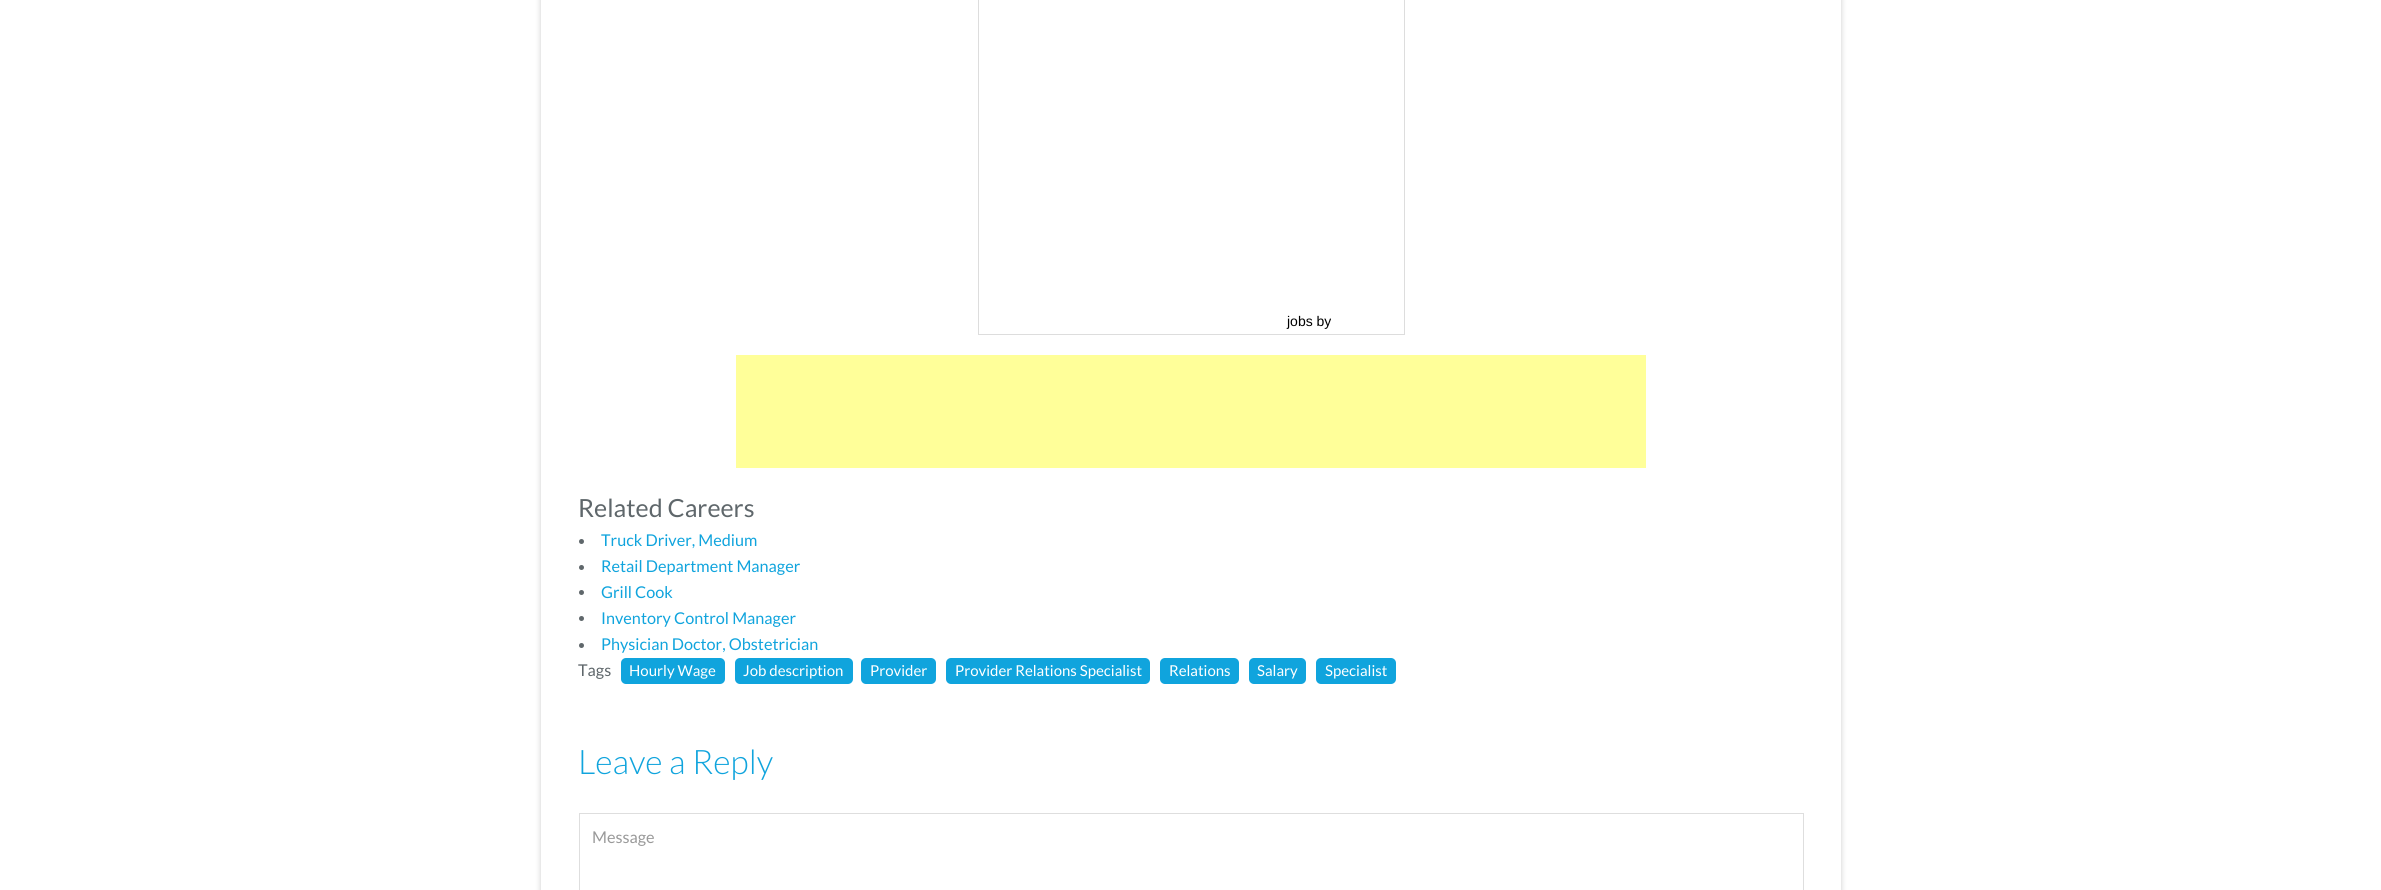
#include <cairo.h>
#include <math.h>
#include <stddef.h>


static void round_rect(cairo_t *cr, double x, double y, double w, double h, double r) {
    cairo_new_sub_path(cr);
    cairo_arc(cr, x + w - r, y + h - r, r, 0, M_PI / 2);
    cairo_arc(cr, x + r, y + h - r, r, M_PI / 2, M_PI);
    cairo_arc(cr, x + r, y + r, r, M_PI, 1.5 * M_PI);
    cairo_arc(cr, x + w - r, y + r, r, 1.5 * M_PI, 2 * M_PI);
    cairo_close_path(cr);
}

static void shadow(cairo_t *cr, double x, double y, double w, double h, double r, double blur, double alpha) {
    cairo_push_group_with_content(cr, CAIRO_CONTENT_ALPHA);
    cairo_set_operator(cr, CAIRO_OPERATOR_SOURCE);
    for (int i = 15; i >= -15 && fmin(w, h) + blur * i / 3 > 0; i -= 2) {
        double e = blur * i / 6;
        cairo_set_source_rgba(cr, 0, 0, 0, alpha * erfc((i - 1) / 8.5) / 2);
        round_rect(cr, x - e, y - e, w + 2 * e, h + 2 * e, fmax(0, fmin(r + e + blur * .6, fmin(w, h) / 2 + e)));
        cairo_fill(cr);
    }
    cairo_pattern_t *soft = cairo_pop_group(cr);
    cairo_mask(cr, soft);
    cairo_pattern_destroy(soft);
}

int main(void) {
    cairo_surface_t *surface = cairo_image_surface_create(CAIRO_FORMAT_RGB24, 2381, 890);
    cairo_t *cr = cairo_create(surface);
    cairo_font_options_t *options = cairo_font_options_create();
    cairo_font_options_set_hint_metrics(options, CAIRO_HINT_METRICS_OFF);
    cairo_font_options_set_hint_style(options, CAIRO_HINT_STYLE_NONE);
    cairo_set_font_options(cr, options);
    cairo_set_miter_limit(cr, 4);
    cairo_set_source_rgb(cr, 1, 1, 1);
    cairo_paint(cr);
    cairo_set_source_rgb(cr, 0, 0, 0);
    shadow(cr, 541, -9, 1300, 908, 0, 3, 0.2);
    cairo_set_source_rgb(cr, 1, 1, 1);
    cairo_rectangle(cr, 541, 0, 1300, 890);
    cairo_fill(cr);
    cairo_rectangle(cr, 978.5, -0.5, 426, 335);
    cairo_set_source_rgb(cr, 0.867, 0.867, 0.867);
    cairo_set_line_width(cr, 1);
    cairo_stroke(cr);
    cairo_select_font_face(cr, "Liberation Sans", CAIRO_FONT_SLANT_NORMAL, CAIRO_FONT_WEIGHT_NORMAL);
    cairo_set_font_size(cr, 14);
    cairo_set_source_rgb(cr, 0, 0, 0);
    cairo_move_to(cr, 1287, 326);
    cairo_show_text(cr, "jobs by");
    cairo_set_source_rgb(cr, 1, 1, 0.6);
    cairo_rectangle(cr, 736, 355, 910, 113);
    cairo_fill(cr);
    cairo_select_font_face(cr, "Lato", CAIRO_FONT_SLANT_NORMAL, CAIRO_FONT_WEIGHT_NORMAL);
    cairo_set_font_size(cr, 25);
    cairo_set_source_rgb(cr, 0.373, 0.404, 0.42);
    cairo_move_to(cr, 578, 517);
    cairo_show_text(cr, "Related Careers");
    cairo_new_path(cr);
    cairo_arc(cr, 581.5, 541.5, 2.5, 0, 2 * M_PI);
    cairo_fill(cr);
    cairo_set_font_size(cr, 16.25);
    cairo_set_source_rgb(cr, 0.063, 0.643, 0.867);
    cairo_move_to(cr, 601, 546);
    cairo_show_text(cr, "Truck Driver, Medium");
    cairo_set_source_rgb(cr, 0.373, 0.404, 0.42);
    cairo_new_path(cr);
    cairo_arc(cr, 581.5, 567.5, 2.5, 0, 2 * M_PI);
    cairo_fill(cr);
    cairo_set_source_rgb(cr, 0.063, 0.643, 0.867);
    cairo_move_to(cr, 601, 572);
    cairo_show_text(cr, "Retail Department Manager");
    cairo_set_source_rgb(cr, 0.373, 0.404, 0.42);
    cairo_new_path(cr);
    cairo_arc(cr, 581.5, 592.5, 2.5, 0, 2 * M_PI);
    cairo_fill(cr);
    cairo_set_source_rgb(cr, 0.063, 0.643, 0.867);
    cairo_move_to(cr, 601, 598);
    cairo_show_text(cr, "Grill Cook");
    cairo_set_source_rgb(cr, 0.373, 0.404, 0.42);
    cairo_new_path(cr);
    cairo_arc(cr, 581.5, 618.5, 2.5, 0, 2 * M_PI);
    cairo_fill(cr);
    cairo_set_source_rgb(cr, 0.063, 0.643, 0.867);
    cairo_move_to(cr, 601, 624);
    cairo_show_text(cr, "Inventory Control Manager");
    cairo_set_source_rgb(cr, 0.373, 0.404, 0.42);
    cairo_new_path(cr);
    cairo_arc(cr, 581.5, 645.5, 2.5, 0, 2 * M_PI);
    cairo_fill(cr);
    cairo_set_source_rgb(cr, 0.063, 0.643, 0.867);
    cairo_move_to(cr, 601, 650);
    cairo_show_text(cr, "Physician Doctor, Obstetrician");
    cairo_set_source_rgb(cr, 0.373, 0.404, 0.42);
    cairo_move_to(cr, 578, 676);
    cairo_show_text(cr, "Tags");
    cairo_set_source_rgb(cr, 0.063, 0.643, 0.867);
    round_rect(cr, 621, 658, 104, 26, 5);
    cairo_fill(cr);
    cairo_set_font_size(cr, 15);
    cairo_set_source_rgb(cr, 1, 1, 1);
    cairo_move_to(cr, 629, 676);
    cairo_show_text(cr, "Hourly Wage");
    cairo_set_source_rgb(cr, 0.063, 0.643, 0.867);
    round_rect(cr, 735, 658, 118, 26, 5);
    cairo_fill(cr);
    cairo_set_source_rgb(cr, 1, 1, 1);
    cairo_move_to(cr, 743, 676);
    cairo_show_text(cr, "Job description");
    cairo_set_source_rgb(cr, 0.063, 0.643, 0.867);
    round_rect(cr, 861, 658, 75, 26, 5);
    cairo_fill(cr);
    cairo_set_source_rgb(cr, 1, 1, 1);
    cairo_move_to(cr, 870, 676);
    cairo_show_text(cr, "Provider");
    cairo_set_source_rgb(cr, 0.063, 0.643, 0.867);
    round_rect(cr, 946, 658, 204, 26, 5);
    cairo_fill(cr);
    cairo_set_source_rgb(cr, 1, 1, 1);
    cairo_move_to(cr, 955, 676);
    cairo_show_text(cr, "Provider Relations Specialist");
    cairo_set_source_rgb(cr, 0.063, 0.643, 0.867);
    round_rect(cr, 1160, 658, 79, 26, 5);
    cairo_fill(cr);
    cairo_set_source_rgb(cr, 1, 1, 1);
    cairo_move_to(cr, 1169, 676);
    cairo_show_text(cr, "Relations");
    cairo_set_source_rgb(cr, 0.063, 0.643, 0.867);
    round_rect(cr, 1249, 658, 57, 26, 5);
    cairo_fill(cr);
    cairo_set_source_rgb(cr, 1, 1, 1);
    cairo_move_to(cr, 1257, 676);
    cairo_show_text(cr, "Salary");
    cairo_set_source_rgb(cr, 0.063, 0.643, 0.867);
    round_rect(cr, 1316, 658, 80, 26, 5);
    cairo_fill(cr);
    cairo_set_source_rgb(cr, 1, 1, 1);
    cairo_move_to(cr, 1325, 676);
    cairo_show_text(cr, "Specialist");
    cairo_select_font_face(cr, "Lato Light", CAIRO_FONT_SLANT_NORMAL, CAIRO_FONT_WEIGHT_NORMAL);
    cairo_set_font_size(cr, 33.75);
    cairo_set_source_rgb(cr, 0.063, 0.643, 0.867);
    cairo_move_to(cr, 578, 774);
    cairo_show_text(cr, "Leave a Reply");
    cairo_rectangle(cr, 579.5, 813.5, 1224, 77);
    cairo_set_source_rgb(cr, 0.871, 0.871, 0.871);
    cairo_stroke(cr);
    cairo_select_font_face(cr, "Lato", CAIRO_FONT_SLANT_NORMAL, CAIRO_FONT_WEIGHT_NORMAL);
    cairo_set_font_size(cr, 16.25);
    cairo_set_source_rgb(cr, 0.6, 0.6, 0.6);
    cairo_move_to(cr, 592, 843);
    cairo_show_text(cr, "Message");
    cairo_surface_write_to_png(surface, "page.png");
    cairo_font_options_destroy(options);
    cairo_destroy(cr);
    cairo_surface_destroy(surface);
    return 0;
}
